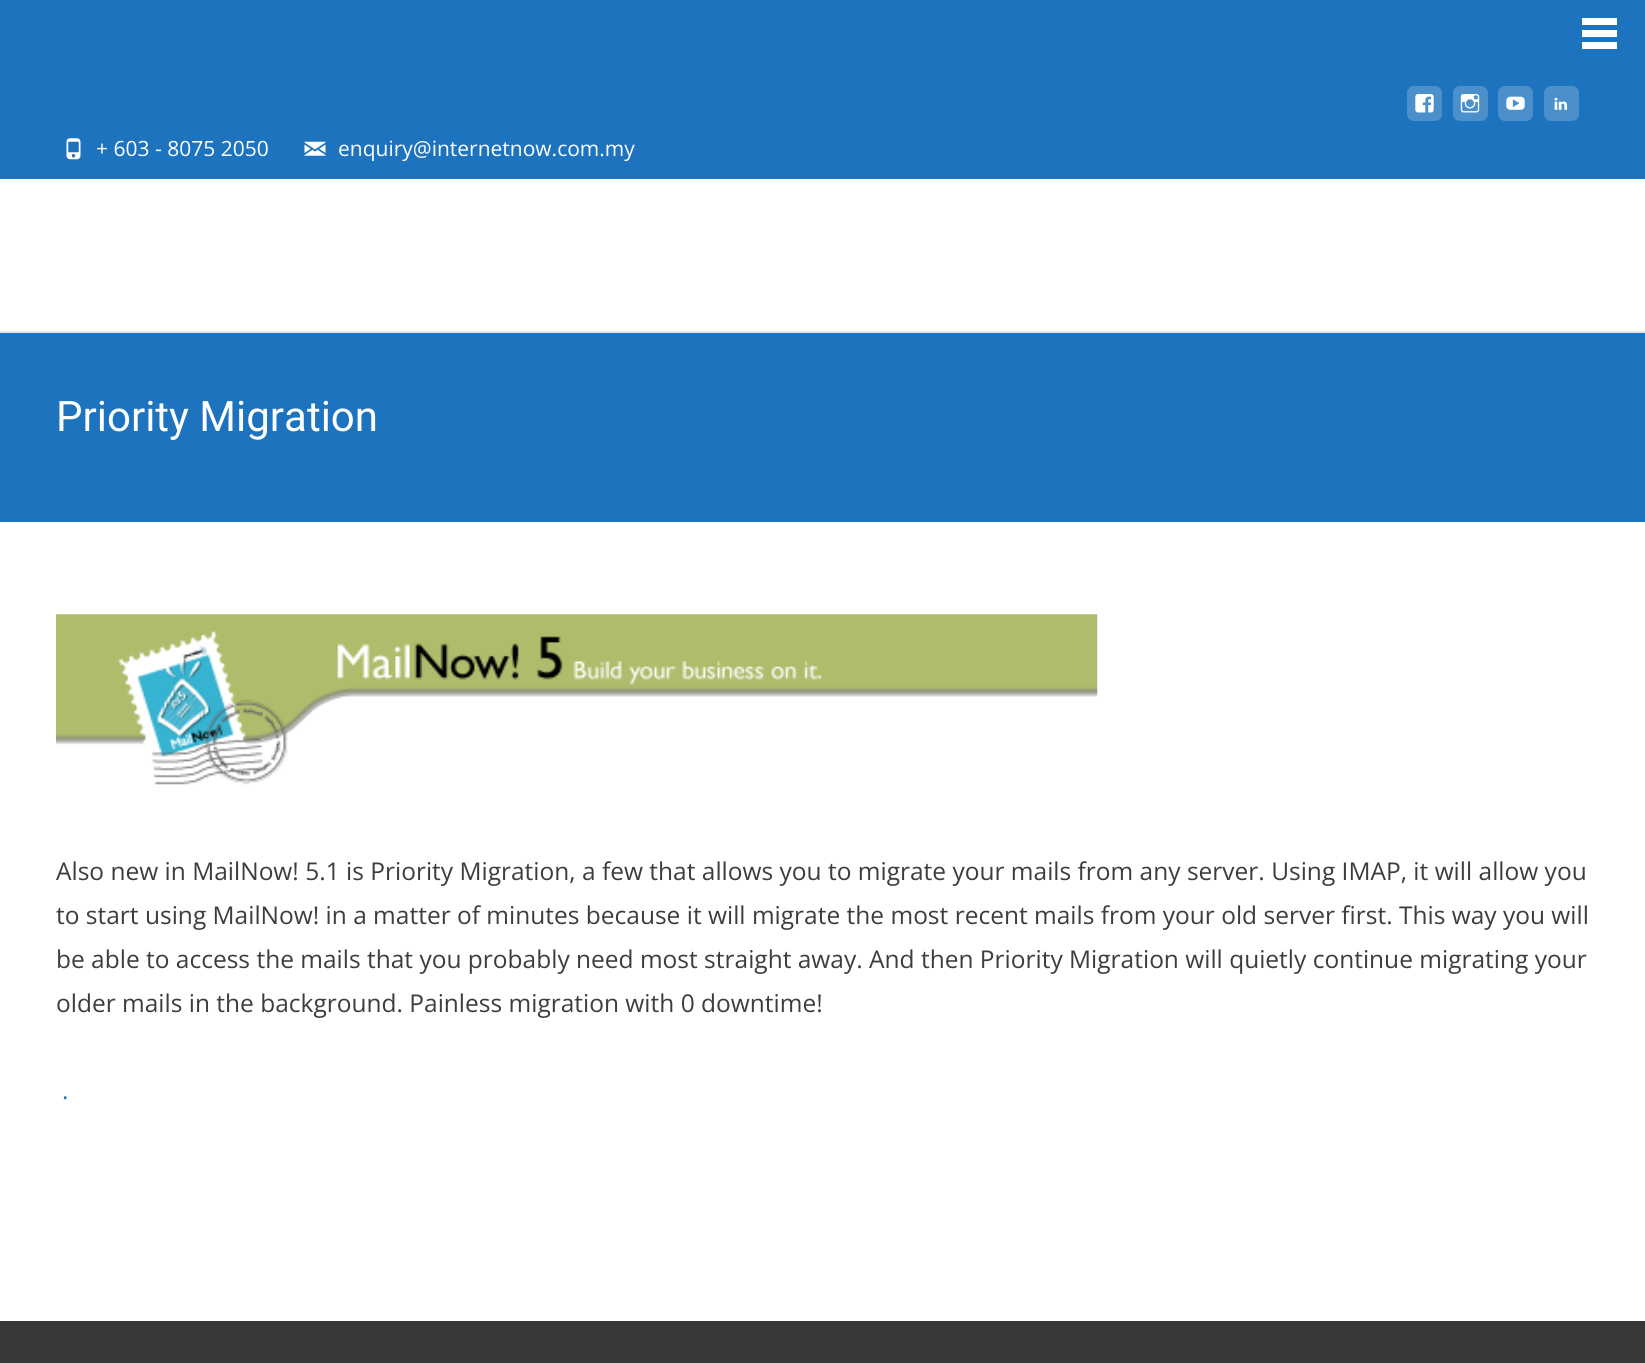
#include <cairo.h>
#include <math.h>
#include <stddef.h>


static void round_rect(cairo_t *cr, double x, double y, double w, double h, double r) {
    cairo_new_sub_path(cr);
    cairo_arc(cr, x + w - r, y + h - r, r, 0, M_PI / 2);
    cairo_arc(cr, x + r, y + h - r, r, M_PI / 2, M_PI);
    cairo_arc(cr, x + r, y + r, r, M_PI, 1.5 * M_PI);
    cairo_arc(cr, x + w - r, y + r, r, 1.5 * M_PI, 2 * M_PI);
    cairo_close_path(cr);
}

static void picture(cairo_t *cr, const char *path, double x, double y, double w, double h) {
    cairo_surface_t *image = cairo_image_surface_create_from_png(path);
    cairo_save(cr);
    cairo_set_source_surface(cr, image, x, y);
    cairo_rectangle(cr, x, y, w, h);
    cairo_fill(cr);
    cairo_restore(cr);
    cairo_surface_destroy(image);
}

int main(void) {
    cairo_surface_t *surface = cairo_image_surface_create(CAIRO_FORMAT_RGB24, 1645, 1363);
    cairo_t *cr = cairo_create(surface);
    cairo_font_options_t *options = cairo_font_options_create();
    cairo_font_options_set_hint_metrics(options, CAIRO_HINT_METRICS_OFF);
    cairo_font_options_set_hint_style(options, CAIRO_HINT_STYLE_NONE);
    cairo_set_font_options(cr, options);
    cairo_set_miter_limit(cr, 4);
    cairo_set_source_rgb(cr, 1, 1, 1);
    cairo_paint(cr);
    cairo_set_source_rgb(cr, 0.118, 0.451, 0.745);
    cairo_rectangle(cr, 0, 0, 1645, 179);
    cairo_fill(cr);
    cairo_set_source_rgb(cr, 1, 1, 1);
    cairo_rectangle(cr, 1582, 18, 35, 7);
    cairo_fill(cr);
    cairo_rectangle(cr, 1582, 30, 35, 7);
    cairo_fill(cr);
    cairo_rectangle(cr, 1582, 42, 35, 7);
    cairo_fill(cr);
    cairo_set_source_rgb(cr, 0.294, 0.561, 0.796);
    round_rect(cr, 1407, 86, 35, 35, 7);
    cairo_fill(cr);
    picture(cr, "img1.png", 1415, 94, 19, 19);
    round_rect(cr, 1453, 86, 35, 35, 7);
    cairo_fill(cr);
    picture(cr, "img2.png", 1460, 94, 20, 19);
    round_rect(cr, 1498, 86, 35, 35, 7);
    cairo_fill(cr);
    picture(cr, "img3.png", 1506, 96, 19, 14);
    round_rect(cr, 1544, 86, 35, 35, 7);
    cairo_fill(cr);
    picture(cr, "img4.png", 1554, 97, 14, 13);
    picture(cr, "img5.png", 66, 138, 15, 22);
    cairo_select_font_face(cr, "Open Sans", CAIRO_FONT_SLANT_NORMAL, CAIRO_FONT_WEIGHT_NORMAL);
    cairo_set_font_size(cr, 21);
    cairo_set_source_rgb(cr, 1, 1, 1);
    cairo_move_to(cr, 96, 156);
    cairo_show_text(cr, "+ 603 - 8075 2050");
    picture(cr, "img6.png", 304, 141, 22, 15);
    cairo_move_to(cr, 338, 156);
    cairo_show_text(cr, "enquiry@internetnow.com.my");
    cairo_set_source_rgb(cr, 0.906, 0.906, 0.906);
    cairo_rectangle(cr, 0, 331, 1645, 2);
    cairo_fill(cr);
    cairo_set_source_rgb(cr, 0.118, 0.451, 0.745);
    cairo_rectangle(cr, 0, 333, 1645, 189);
    cairo_fill(cr);
    cairo_select_font_face(cr, "Roboto", CAIRO_FONT_SLANT_NORMAL, CAIRO_FONT_WEIGHT_NORMAL);
    cairo_set_font_size(cr, 42);
    cairo_set_source_rgb(cr, 1, 1, 1);
    cairo_move_to(cr, 56, 431);
    cairo_show_text(cr, "Priority Migration");
    picture(cr, "img7.png", 56, 614, 1042, 171);
    cairo_select_font_face(cr, "Open Sans", CAIRO_FONT_SLANT_NORMAL, CAIRO_FONT_WEIGHT_NORMAL);
    cairo_set_font_size(cr, 24.5);
    cairo_set_source_rgb(cr, 0.239, 0.239, 0.239);
    cairo_move_to(cr, 56, 880);
    cairo_show_text(cr, "Also new in MailNow! 5.1 is Priority Migration, a few that allows you to migrate your mails from any server. Using IMAP, it will allow you");
    cairo_move_to(cr, 56, 924);
    cairo_show_text(cr, "to start using MailNow! in a matter of minutes because it will migrate the most recent mails from your old server first. This way you will");
    cairo_move_to(cr, 56, 968);
    cairo_show_text(cr, "be able to access the mails that you probably need most straight away. And then Priority Migration will quietly continue migrating your");
    cairo_move_to(cr, 56, 1012);
    cairo_show_text(cr, "older mails in the background. Painless migration with 0 downtime!");
    cairo_set_source_rgb(cr, 0.118, 0.451, 0.745);
    cairo_move_to(cr, 62, 1099);
    cairo_show_text(cr, ".");
    cairo_set_source_rgb(cr, 0.22, 0.22, 0.22);
    cairo_rectangle(cr, 0, 1321, 1645, 42);
    cairo_fill(cr);
    cairo_surface_write_to_png(surface, "page.png");
    cairo_font_options_destroy(options);
    cairo_destroy(cr);
    cairo_surface_destroy(surface);
    return 0;
}
